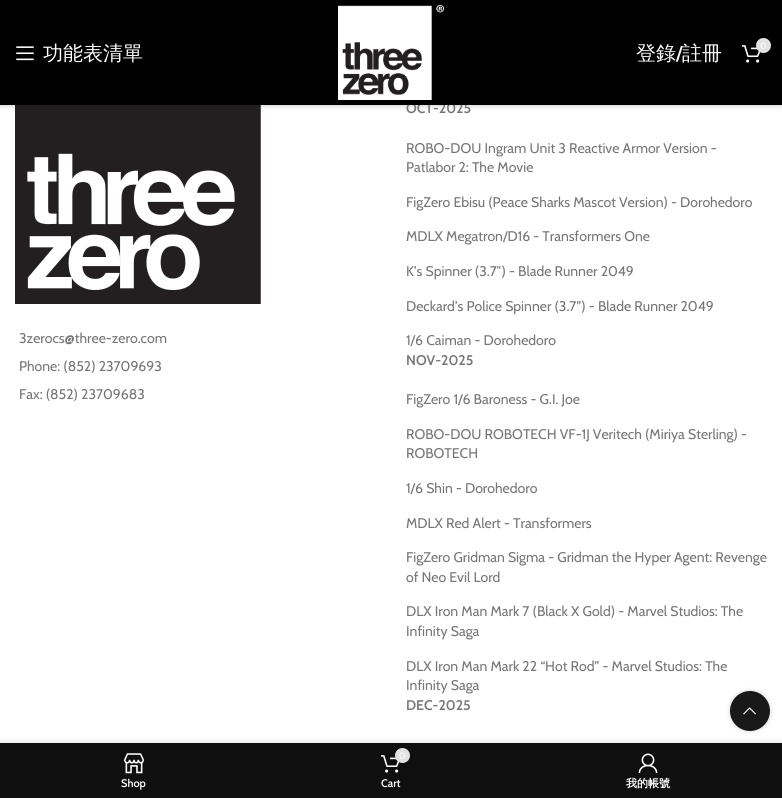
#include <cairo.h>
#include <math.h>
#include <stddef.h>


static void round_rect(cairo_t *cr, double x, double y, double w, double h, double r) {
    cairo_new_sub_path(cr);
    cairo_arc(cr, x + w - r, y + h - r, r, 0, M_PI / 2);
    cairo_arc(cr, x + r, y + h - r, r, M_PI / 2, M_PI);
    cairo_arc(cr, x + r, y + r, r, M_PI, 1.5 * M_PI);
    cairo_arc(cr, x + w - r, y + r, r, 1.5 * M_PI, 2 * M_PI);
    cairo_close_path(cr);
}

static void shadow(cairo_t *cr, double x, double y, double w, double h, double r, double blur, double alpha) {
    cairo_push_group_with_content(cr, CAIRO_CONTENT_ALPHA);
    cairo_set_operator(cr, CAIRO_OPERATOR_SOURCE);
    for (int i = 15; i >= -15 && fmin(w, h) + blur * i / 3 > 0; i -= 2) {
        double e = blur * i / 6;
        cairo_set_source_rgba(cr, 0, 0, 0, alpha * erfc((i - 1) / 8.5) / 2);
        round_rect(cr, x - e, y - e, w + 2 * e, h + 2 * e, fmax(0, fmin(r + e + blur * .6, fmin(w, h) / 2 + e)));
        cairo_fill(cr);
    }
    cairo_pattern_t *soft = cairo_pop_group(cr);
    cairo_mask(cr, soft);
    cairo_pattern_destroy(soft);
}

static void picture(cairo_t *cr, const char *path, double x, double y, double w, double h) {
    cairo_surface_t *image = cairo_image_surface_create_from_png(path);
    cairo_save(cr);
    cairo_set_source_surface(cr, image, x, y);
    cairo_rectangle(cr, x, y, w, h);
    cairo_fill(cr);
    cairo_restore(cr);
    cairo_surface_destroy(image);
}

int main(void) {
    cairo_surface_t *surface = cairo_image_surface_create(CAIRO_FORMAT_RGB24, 782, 798);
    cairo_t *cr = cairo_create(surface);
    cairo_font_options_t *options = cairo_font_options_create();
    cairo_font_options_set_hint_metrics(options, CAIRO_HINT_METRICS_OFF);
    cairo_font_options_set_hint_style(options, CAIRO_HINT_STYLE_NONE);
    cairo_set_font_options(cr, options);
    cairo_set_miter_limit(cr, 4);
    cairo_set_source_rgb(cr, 1, 1, 1);
    cairo_paint(cr);
    picture(cr, "img4.png", 15, 105, 246, 199);
    cairo_set_source_rgb(cr, 0, 0, 0);
    shadow(cr, 0, 1, 782, 105, 0, 1.5, 0.1);
    shadow(cr, 0, 1, 782, 105, 0, 4, 0.1);
    cairo_select_font_face(cr, "Cabin SemiBold", CAIRO_FONT_SLANT_NORMAL, CAIRO_FONT_WEIGHT_NORMAL);
    cairo_set_font_size(cr, 14);
    cairo_set_source_rgb(cr, 0.463, 0.463, 0.463);
    cairo_move_to(cr, 406, 113);
    cairo_show_text(cr, "OCT-2025");
    cairo_set_source_rgb(cr, 0, 0, 0);
    cairo_rectangle(cr, 0, 0, 782, 105);
    cairo_fill(cr);
    picture(cr, "img1.png", 16, 46, 18, 15);
    cairo_select_font_face(cr, "WenQuanYi Zen Hei Medium", CAIRO_FONT_SLANT_NORMAL, CAIRO_FONT_WEIGHT_NORMAL);
    cairo_set_font_size(cr, 20);
    cairo_set_source_rgb(cr, 1, 1, 1);
    cairo_move_to(cr, 43, 60);
    cairo_show_text(cr, "功能表清單");
    picture(cr, "img2.png", 338, 5, 106, 95);
    cairo_move_to(cr, 636, 60);
    cairo_show_text(cr, "登錄");
    cairo_select_font_face(cr, "Cabin Condensed Medium", CAIRO_FONT_SLANT_NORMAL, CAIRO_FONT_WEIGHT_NORMAL);
    cairo_move_to(cr, 676, 60);
    cairo_show_text(cr, "/");
    cairo_select_font_face(cr, "WenQuanYi Zen Hei Medium", CAIRO_FONT_SLANT_NORMAL, CAIRO_FONT_WEIGHT_NORMAL);
    cairo_move_to(cr, 682, 60);
    cairo_show_text(cr, "註冊");
    picture(cr, "img3.png", 742, 45, 19, 18);
    cairo_set_source_rgb(cr, 0.886, 0.886, 0.886);
    cairo_arc(cr, 763.5, 45.5, 7.5, 0, 2 * M_PI);
    cairo_fill(cr);
    cairo_select_font_face(cr, "Cabin", CAIRO_FONT_SLANT_NORMAL, CAIRO_FONT_WEIGHT_NORMAL);
    cairo_set_font_size(cr, 9);
    cairo_set_source_rgb(cr, 1, 1, 1);
    cairo_move_to(cr, 760, 49);
    cairo_show_text(cr, "0");
    cairo_set_font_size(cr, 14);
    cairo_set_source_rgb(cr, 0.463, 0.463, 0.463);
    cairo_move_to(cr, 19, 343);
    cairo_show_text(cr, "3zerocs@three-zero.com");
    cairo_move_to(cr, 19, 371);
    cairo_show_text(cr, "Phone: (852) 23709693");
    cairo_move_to(cr, 19, 399);
    cairo_show_text(cr, "Fax: (852) 23709683");
    cairo_move_to(cr, 406, 153);
    cairo_show_text(cr, "ROBO-DOU Ingram Unit 3 Reactive Armor Version -");
    cairo_move_to(cr, 406, 172);
    cairo_show_text(cr, "Patlabor 2: The Movie");
    cairo_move_to(cr, 406, 207);
    cairo_show_text(cr, "FigZero Ebisu (Peace Sharks Mascot Version) - Dorohedoro");
    cairo_move_to(cr, 406, 241);
    cairo_show_text(cr, "MDLX Megatron/D16 - Transformers One");
    cairo_move_to(cr, 406, 276);
    cairo_show_text(cr, "K’s Spinner (3.7″) - Blade Runner 2049");
    cairo_move_to(cr, 406, 311);
    cairo_show_text(cr, "Deckard’s Police Spinner (3.7”) - Blade Runner 2049");
    cairo_move_to(cr, 406, 345);
    cairo_show_text(cr, "1/6 Caiman - Dorohedoro");
    cairo_select_font_face(cr, "Cabin SemiBold", CAIRO_FONT_SLANT_NORMAL, CAIRO_FONT_WEIGHT_NORMAL);
    cairo_move_to(cr, 406, 365);
    cairo_show_text(cr, "NOV-2025");
    cairo_select_font_face(cr, "Cabin", CAIRO_FONT_SLANT_NORMAL, CAIRO_FONT_WEIGHT_NORMAL);
    cairo_move_to(cr, 406, 404);
    cairo_show_text(cr, "FigZero 1/6 Baroness - G.I. Joe");
    cairo_move_to(cr, 406, 439);
    cairo_show_text(cr, "ROBO-DOU ROBOTECH VF-1J Veritech (Miriya Sterling) -");
    cairo_move_to(cr, 406, 458);
    cairo_show_text(cr, "ROBOTECH");
    cairo_move_to(cr, 406, 493);
    cairo_show_text(cr, "1/6 Shin - Dorohedoro");
    cairo_move_to(cr, 406, 528);
    cairo_show_text(cr, "MDLX Red Alert - Transformers");
    cairo_move_to(cr, 406, 562);
    cairo_show_text(cr, "FigZero Gridman Sigma - Gridman the Hyper Agent: Revenge");
    cairo_move_to(cr, 406, 582);
    cairo_show_text(cr, "of Neo Evil Lord");
    cairo_move_to(cr, 406, 616);
    cairo_show_text(cr, "DLX Iron Man Mark 7 (Black X Gold) - Marvel Studios: The");
    cairo_move_to(cr, 406, 636);
    cairo_show_text(cr, "Infinity Saga");
    cairo_move_to(cr, 406, 671);
    cairo_show_text(cr, "DLX Iron Man Mark 22 “Hot Rod” - Marvel Studios: The");
    cairo_move_to(cr, 406, 690);
    cairo_show_text(cr, "Infinity Saga");
    cairo_select_font_face(cr, "Cabin SemiBold", CAIRO_FONT_SLANT_NORMAL, CAIRO_FONT_WEIGHT_NORMAL);
    cairo_move_to(cr, 406, 710);
    cairo_show_text(cr, "DEC-2025");
    cairo_save(cr);
    cairo_set_fill_rule(cr, CAIRO_FILL_RULE_EVEN_ODD);
    cairo_new_path(cr);
    cairo_move_to(cr, 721, 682);
    cairo_line_to(cr, 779, 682);
    cairo_line_to(cr, 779, 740);
    cairo_line_to(cr, 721, 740);
    cairo_close_path(cr);
    cairo_move_to(cr, 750, 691);
    cairo_curve_to(cr, 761, 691, 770, 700, 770, 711);
    cairo_curve_to(cr, 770, 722, 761, 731, 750, 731);
    cairo_curve_to(cr, 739, 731, 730, 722, 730, 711);
    cairo_curve_to(cr, 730, 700, 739, 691, 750, 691);
    cairo_close_path(cr);
    cairo_clip(cr);
    cairo_set_source_rgb(cr, 0, 0, 0);
    shadow(cr, 730, 691, 40, 40, 20, 2.5, 0.17);
    cairo_restore(cr);
    cairo_set_source_rgba(cr, 0, 0, 0, 0.9);
    cairo_arc(cr, 750, 711, 20, 0, 2 * M_PI);
    cairo_fill(cr);
    picture(cr, "img5.png", 743, 707, 13, 8);
    cairo_set_source_rgb(cr, 0, 0, 0);
    shadow(cr, 0, 743, 782, 55, 0, 4.5, 0.12);
    cairo_set_source_rgb(cr, 0.059, 0.059, 0.059);
    cairo_rectangle(cr, 0, 743, 782, 55);
    cairo_fill(cr);
    picture(cr, "img6.png", 124, 753, 20, 21);
    cairo_set_font_size(cr, 11);
    cairo_set_source_rgb(cr, 1, 1, 1);
    cairo_move_to(cr, 121, 787);
    cairo_show_text(cr, "Shop");
    picture(cr, "img7.png", 381, 755, 19, 18);
    cairo_set_source_rgb(cr, 0.886, 0.886, 0.886);
    cairo_arc(cr, 402.5, 755.5, 7.5, 0, 2 * M_PI);
    cairo_fill(cr);
    cairo_select_font_face(cr, "Cabin", CAIRO_FONT_SLANT_NORMAL, CAIRO_FONT_WEIGHT_NORMAL);
    cairo_set_font_size(cr, 9);
    cairo_set_source_rgb(cr, 1, 1, 1);
    cairo_move_to(cr, 399, 759);
    cairo_show_text(cr, "0");
    cairo_select_font_face(cr, "Cabin SemiBold", CAIRO_FONT_SLANT_NORMAL, CAIRO_FONT_WEIGHT_NORMAL);
    cairo_set_font_size(cr, 11);
    cairo_move_to(cr, 381, 787);
    cairo_show_text(cr, "Cart");
    picture(cr, "img8.png", 638, 753, 20, 20);
    cairo_select_font_face(cr, "WenQuanYi Zen Hei", CAIRO_FONT_SLANT_NORMAL, CAIRO_FONT_WEIGHT_BOLD);
    cairo_move_to(cr, 626, 787);
    cairo_show_text(cr, "我的帳號");
    cairo_surface_write_to_png(surface, "page.png");
    cairo_font_options_destroy(options);
    cairo_destroy(cr);
    cairo_surface_destroy(surface);
    return 0;
}
